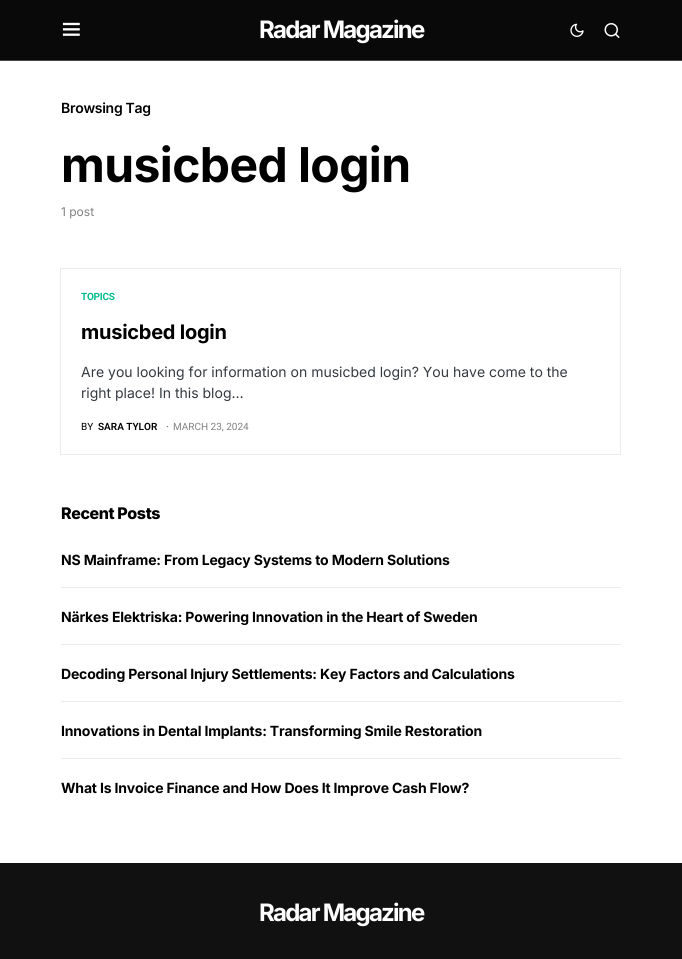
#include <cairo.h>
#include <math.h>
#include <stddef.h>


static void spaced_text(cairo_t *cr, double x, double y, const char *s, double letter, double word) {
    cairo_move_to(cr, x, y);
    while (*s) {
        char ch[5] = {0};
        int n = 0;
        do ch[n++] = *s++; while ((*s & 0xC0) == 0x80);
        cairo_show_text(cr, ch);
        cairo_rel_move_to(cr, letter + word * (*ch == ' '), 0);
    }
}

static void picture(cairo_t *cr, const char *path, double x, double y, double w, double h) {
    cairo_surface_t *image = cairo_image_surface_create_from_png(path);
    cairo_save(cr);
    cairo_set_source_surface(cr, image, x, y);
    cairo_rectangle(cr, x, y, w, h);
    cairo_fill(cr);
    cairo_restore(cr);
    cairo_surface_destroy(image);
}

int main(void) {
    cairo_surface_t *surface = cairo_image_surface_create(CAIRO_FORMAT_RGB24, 682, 959);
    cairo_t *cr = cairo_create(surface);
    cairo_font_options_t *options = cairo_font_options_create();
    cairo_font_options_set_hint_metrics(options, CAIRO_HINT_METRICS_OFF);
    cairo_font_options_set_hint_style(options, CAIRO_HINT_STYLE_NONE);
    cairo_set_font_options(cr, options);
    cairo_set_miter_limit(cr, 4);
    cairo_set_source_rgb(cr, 1, 1, 1);
    cairo_paint(cr);
    cairo_set_source_rgb(cr, 0.039, 0.039, 0.039);
    cairo_rectangle(cr, 0, 0, 682, 60);
    cairo_fill(cr);
    cairo_set_source_rgb(cr, 0.286, 0.286, 0.286);
    cairo_rectangle(cr, 0, 60, 682, 1);
    cairo_fill(cr);
    picture(cr, "img1.png", 62, 22, 18, 14);
    cairo_select_font_face(cr, "Inter", CAIRO_FONT_SLANT_NORMAL, CAIRO_FONT_WEIGHT_BOLD);
    cairo_set_font_size(cr, 24);
    cairo_set_source_rgb(cr, 1, 1, 1);
    spaced_text(cr, 259, 38, "Radar Magazine", -1.75, 0);
    picture(cr, "img2.png", 570, 23, 14, 14);
    picture(cr, "img3.png", 604, 23, 16, 15);
    cairo_select_font_face(cr, "Inter SemiBold", CAIRO_FONT_SLANT_NORMAL, CAIRO_FONT_WEIGHT_NORMAL);
    cairo_set_font_size(cr, 14);
    cairo_set_source_rgb(cr, 0, 0, 0);
    spaced_text(cr, 61, 113, "Browsing Tag", -0.3, 0);
    cairo_select_font_face(cr, "Inter", CAIRO_FONT_SLANT_NORMAL, CAIRO_FONT_WEIGHT_BOLD);
    cairo_set_font_size(cr, 48);
    spaced_text(cr, 61, 182, "musicbed login", -0.6, 0);
    cairo_select_font_face(cr, "Inter", CAIRO_FONT_SLANT_NORMAL, CAIRO_FONT_WEIGHT_NORMAL);
    cairo_set_font_size(cr, 12);
    cairo_set_source_rgb(cr, 0.506, 0.506, 0.506);
    cairo_move_to(cr, 61, 216);
    cairo_show_text(cr, "1 post");
    cairo_rectangle(cr, 60.5, 268.5, 560, 186);
    cairo_set_source_rgb(cr, 0.914, 0.925, 0.937);
    cairo_set_line_width(cr, 1);
    cairo_stroke(cr);
    cairo_select_font_face(cr, "Roboto", CAIRO_FONT_SLANT_NORMAL, CAIRO_FONT_WEIGHT_BOLD);
    cairo_set_font_size(cr, 10);
    cairo_set_source_rgb(cr, 0.016, 0.737, 0.557);
    spaced_text(cr, 81, 300, "TOPICS", -0.25, 0);
    cairo_select_font_face(cr, "Inter", CAIRO_FONT_SLANT_NORMAL, CAIRO_FONT_WEIGHT_BOLD);
    cairo_set_font_size(cr, 20);
    cairo_set_source_rgb(cr, 0, 0, 0);
    spaced_text(cr, 81, 339, "musicbed login", -0.25, 0);
    cairo_select_font_face(cr, "Inter", CAIRO_FONT_SLANT_NORMAL, CAIRO_FONT_WEIGHT_NORMAL);
    cairo_set_font_size(cr, 14);
    cairo_set_source_rgb(cr, 0.204, 0.227, 0.251);
    cairo_move_to(cr, 81, 377);
    cairo_show_text(cr, "Are you looking for information on musicbed login? You have come to the");
    cairo_move_to(cr, 81, 398);
    cairo_show_text(cr, "right place! In this blog…");
    cairo_select_font_face(cr, "Roboto", CAIRO_FONT_SLANT_NORMAL, CAIRO_FONT_WEIGHT_NORMAL);
    cairo_set_font_size(cr, 10);
    cairo_set_source_rgb(cr, 0, 0, 0);
    cairo_move_to(cr, 81, 430);
    cairo_show_text(cr, "BY");
    cairo_select_font_face(cr, "Roboto SemiBold", CAIRO_FONT_SLANT_NORMAL, CAIRO_FONT_WEIGHT_NORMAL);
    cairo_move_to(cr, 98, 430);
    cairo_show_text(cr, "SARA TYLOR");
    cairo_set_source_rgb(cr, 0.506, 0.506, 0.506);
    cairo_move_to(cr, 166, 430);
    cairo_show_text(cr, "·");
    cairo_select_font_face(cr, "Roboto", CAIRO_FONT_SLANT_NORMAL, CAIRO_FONT_WEIGHT_NORMAL);
    cairo_move_to(cr, 173, 430);
    cairo_show_text(cr, "MARCH 23, 2024");
    cairo_select_font_face(cr, "Inter ExtraBold", CAIRO_FONT_SLANT_NORMAL, CAIRO_FONT_WEIGHT_NORMAL);
    cairo_set_font_size(cr, 16);
    cairo_set_source_rgb(cr, 0, 0, 0);
    spaced_text(cr, 61, 519, "Recent Posts", -0.4, 0);
    cairo_set_source_rgb(cr, 0.914, 0.925, 0.937);
    cairo_rectangle(cr, 61, 587, 560, 1);
    cairo_fill(cr);
    cairo_select_font_face(cr, "Inter", CAIRO_FONT_SLANT_NORMAL, CAIRO_FONT_WEIGHT_BOLD);
    cairo_set_font_size(cr, 14);
    cairo_set_source_rgb(cr, 0, 0, 0);
    spaced_text(cr, 61, 565, "NS Mainframe: From Legacy Systems to Modern Solutions", -0.17, 0);
    cairo_set_source_rgb(cr, 0.914, 0.925, 0.937);
    cairo_rectangle(cr, 61, 644, 560, 1);
    cairo_fill(cr);
    cairo_set_source_rgb(cr, 0, 0, 0);
    spaced_text(cr, 61, 622, "Närkes Elektriska: Powering Innovation in the Heart of Sweden", -0.17, 0);
    cairo_set_source_rgb(cr, 0.914, 0.925, 0.937);
    cairo_rectangle(cr, 61, 701, 560, 1);
    cairo_fill(cr);
    cairo_set_source_rgb(cr, 0, 0, 0);
    spaced_text(cr, 61, 679, "Decoding Personal Injury Settlements: Key Factors and Calculations", -0.17, 0);
    cairo_set_source_rgb(cr, 0.914, 0.925, 0.937);
    cairo_rectangle(cr, 61, 758, 560, 1);
    cairo_fill(cr);
    cairo_set_source_rgb(cr, 0, 0, 0);
    spaced_text(cr, 61, 736, "Innovations in Dental Implants: Transforming Smile Restoration", -0.17, 0);
    spaced_text(cr, 61, 793, "What Is Invoice Finance and How Does It Improve Cash Flow?", -0.17, 0);
    cairo_set_source_rgb(cr, 0.067, 0.067, 0.067);
    cairo_rectangle(cr, 0, 863, 682, 96);
    cairo_fill(cr);
    cairo_set_font_size(cr, 24);
    cairo_set_source_rgb(cr, 1, 1, 1);
    spaced_text(cr, 259, 921, "Radar Magazine", -1.75, 0);
    cairo_surface_write_to_png(surface, "page.png");
    cairo_font_options_destroy(options);
    cairo_destroy(cr);
    cairo_surface_destroy(surface);
    return 0;
}
